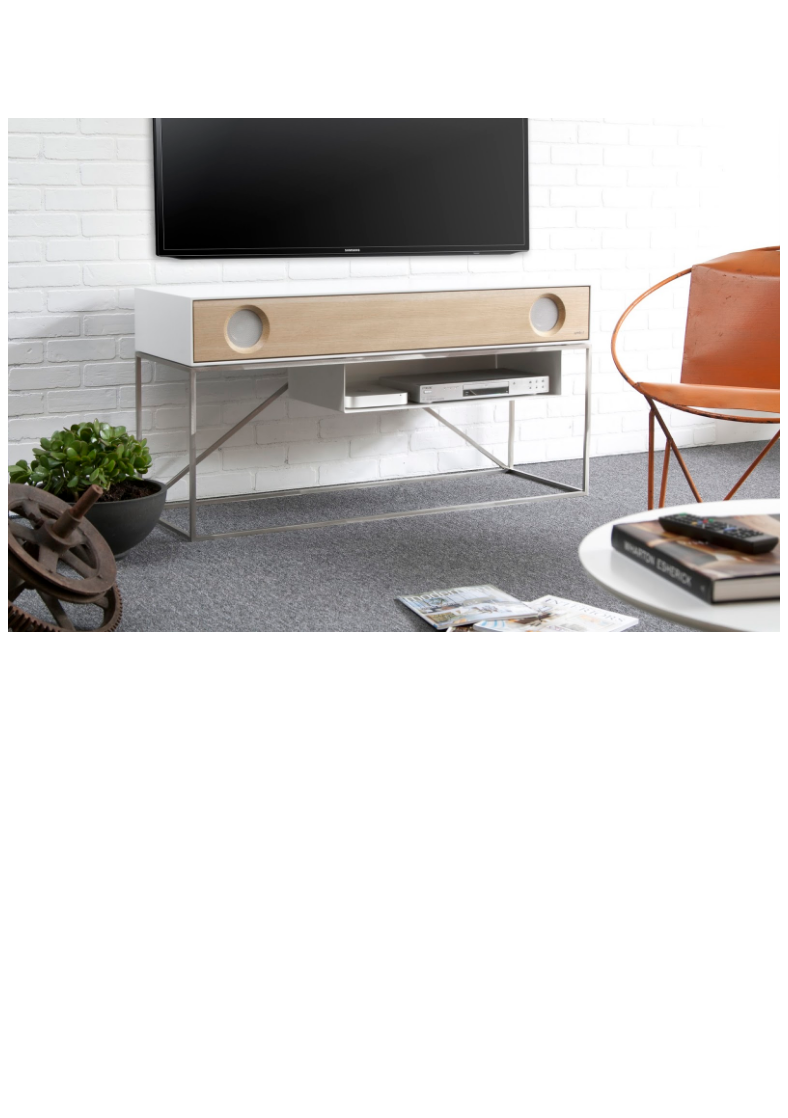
#include <cairo.h>
#include <math.h>
#include <stddef.h>


static void picture(cairo_t *cr, const char *path, double x, double y, double w, double h) {
    cairo_surface_t *image = cairo_image_surface_create_from_png(path);
    cairo_save(cr);
    cairo_set_source_surface(cr, image, x, y);
    cairo_rectangle(cr, x, y, w, h);
    cairo_fill(cr);
    cairo_restore(cr);
    cairo_surface_destroy(image);
}

int main(void) {
    cairo_surface_t *surface = cairo_image_surface_create(CAIRO_FORMAT_RGB24, 788, 1118);
    cairo_t *cr = cairo_create(surface);
    cairo_font_options_t *options = cairo_font_options_create();
    cairo_font_options_set_hint_metrics(options, CAIRO_HINT_METRICS_OFF);
    cairo_font_options_set_hint_style(options, CAIRO_HINT_STYLE_NONE);
    cairo_set_font_options(cr, options);
    cairo_set_miter_limit(cr, 4);
    cairo_set_source_rgb(cr, 1, 1, 1);
    cairo_paint(cr);
    picture(cr, "img1.png", 8, 118, 772, 514);
    cairo_surface_write_to_png(surface, "page.png");
    cairo_font_options_destroy(options);
    cairo_destroy(cr);
    cairo_surface_destroy(surface);
    return 0;
}
